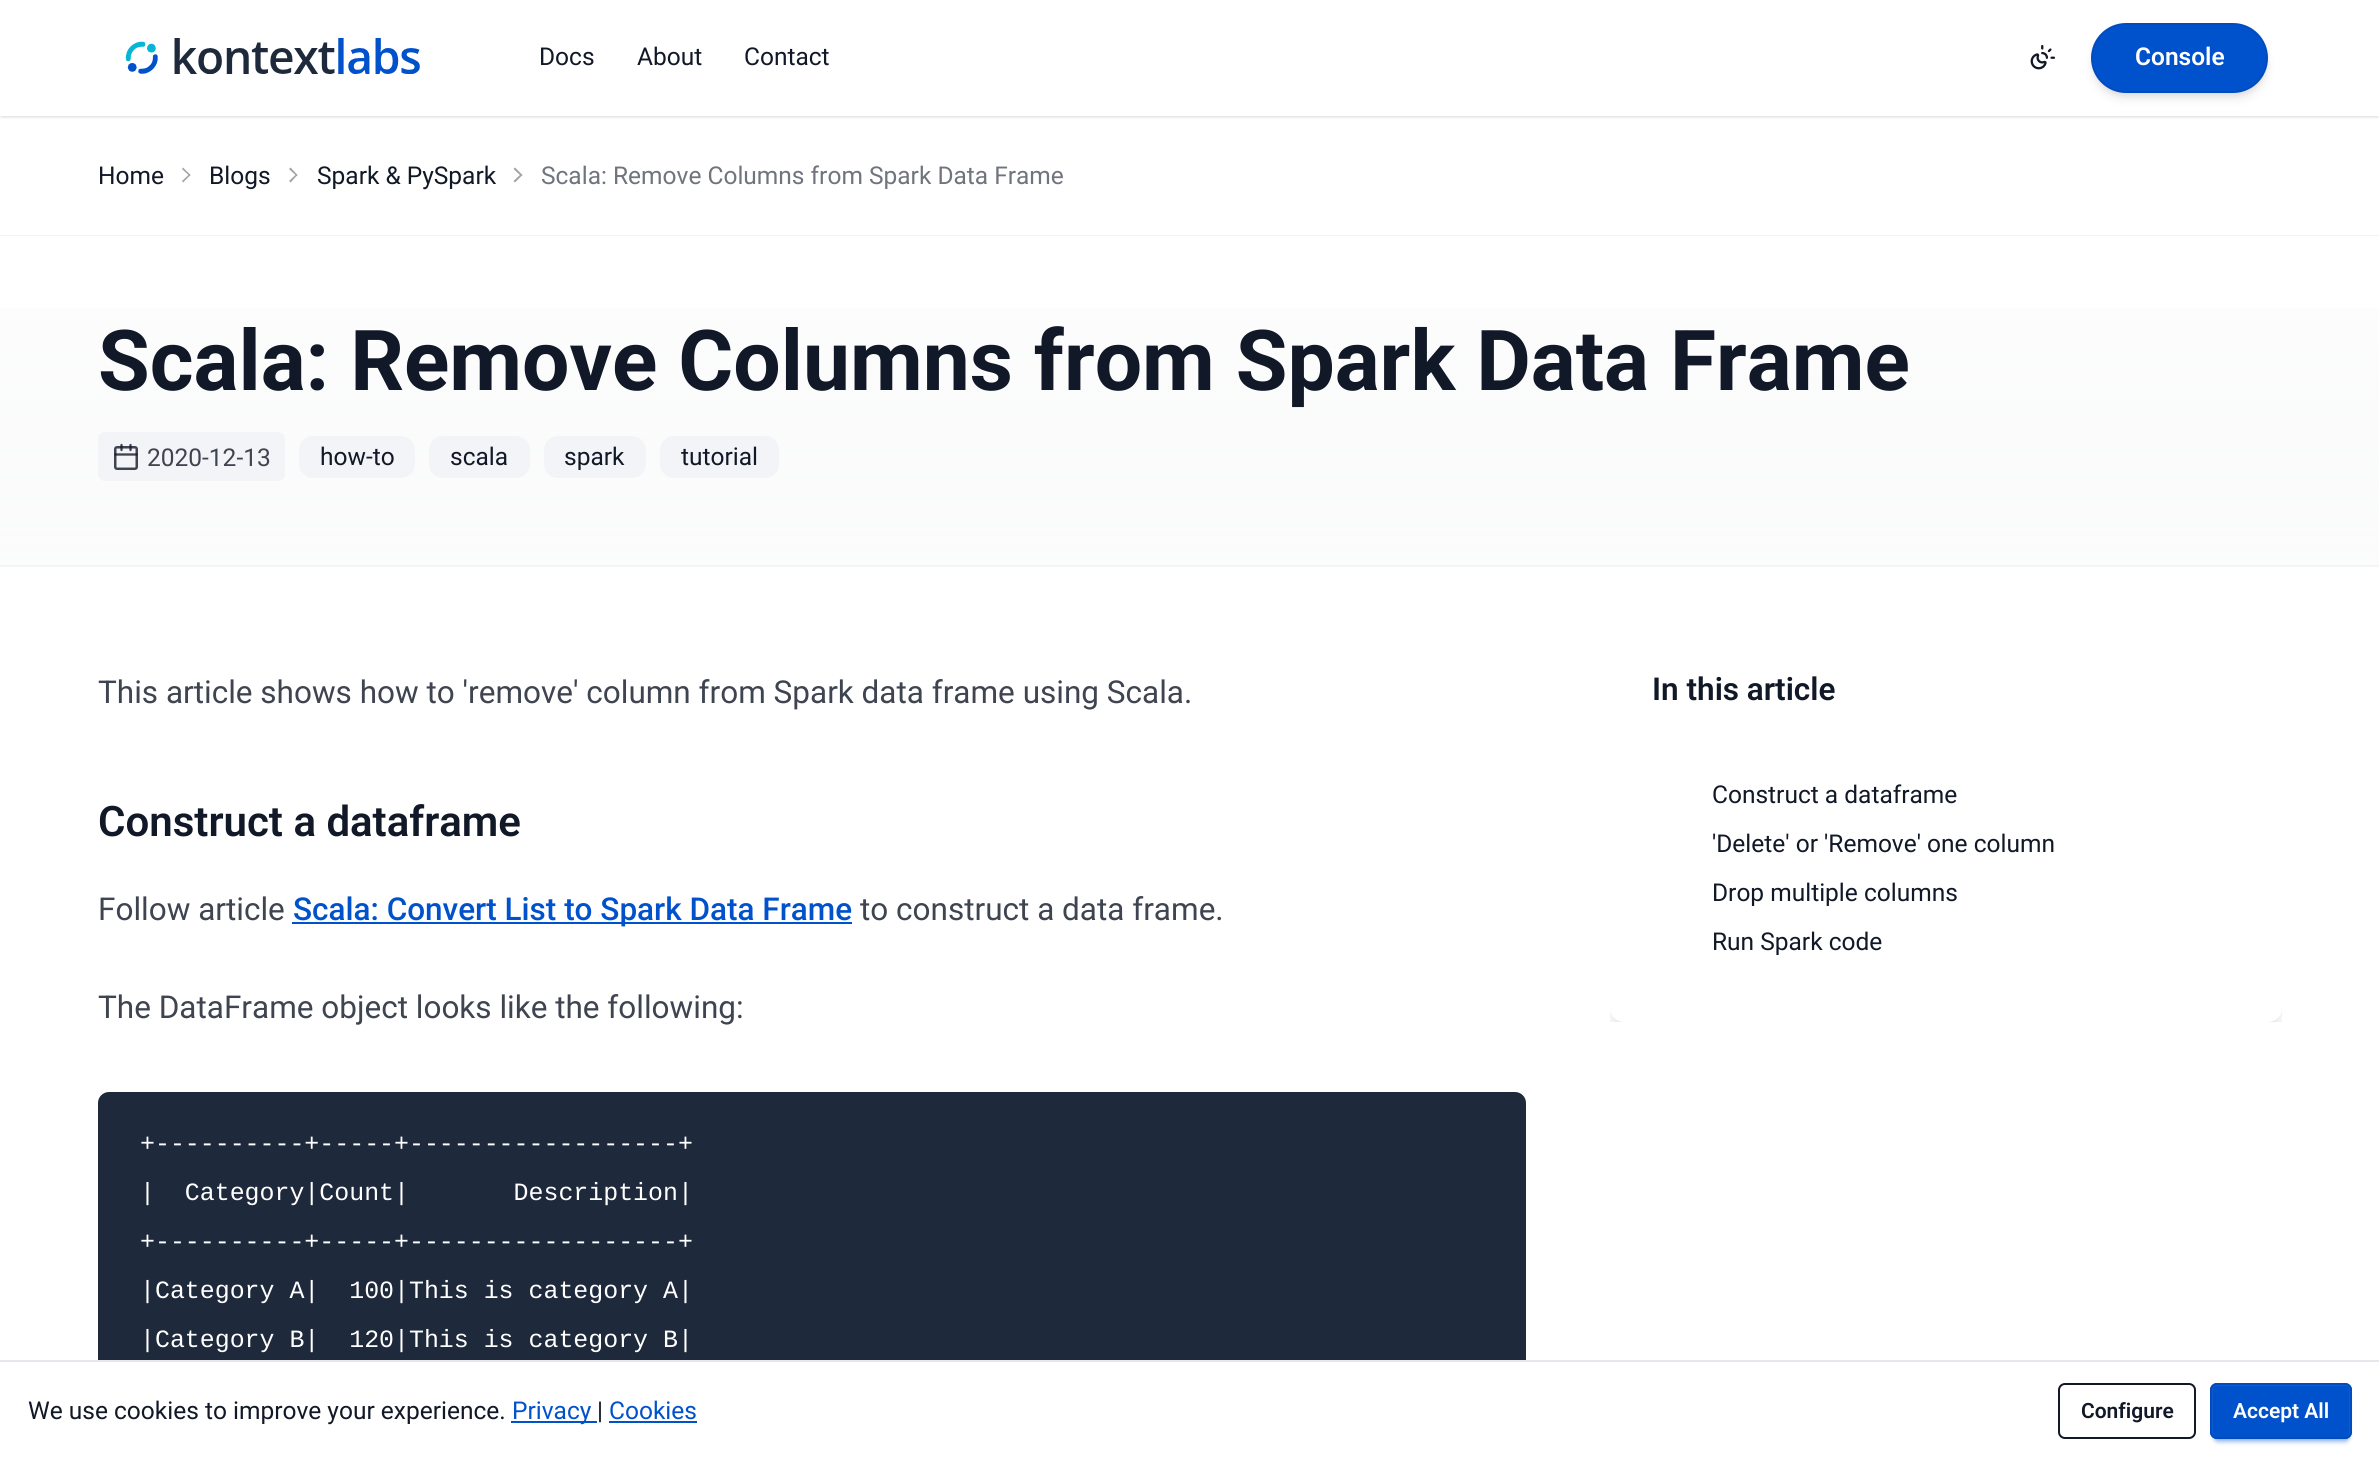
#include <cairo.h>
#include <math.h>
#include <stddef.h>


static void round_rect(cairo_t *cr, double x, double y, double w, double h, double r) {
    cairo_new_sub_path(cr);
    cairo_arc(cr, x + w - r, y + h - r, r, 0, M_PI / 2);
    cairo_arc(cr, x + r, y + h - r, r, M_PI / 2, M_PI);
    cairo_arc(cr, x + r, y + r, r, M_PI, 1.5 * M_PI);
    cairo_arc(cr, x + w - r, y + r, r, 1.5 * M_PI, 2 * M_PI);
    cairo_close_path(cr);
}

static void shadow(cairo_t *cr, double x, double y, double w, double h, double r, double blur, double alpha) {
    cairo_push_group_with_content(cr, CAIRO_CONTENT_ALPHA);
    cairo_set_operator(cr, CAIRO_OPERATOR_SOURCE);
    for (int i = 15; i >= -15 && fmin(w, h) + blur * i / 3 > 0; i -= 2) {
        double e = blur * i / 6;
        cairo_set_source_rgba(cr, 0, 0, 0, alpha * erfc((i - 1) / 8.5) / 2);
        round_rect(cr, x - e, y - e, w + 2 * e, h + 2 * e, fmax(0, fmin(r + e + blur * .6, fmin(w, h) / 2 + e)));
        cairo_fill(cr);
    }
    cairo_pattern_t *soft = cairo_pop_group(cr);
    cairo_mask(cr, soft);
    cairo_pattern_destroy(soft);
}

static void picture(cairo_t *cr, const char *path, double x, double y, double w, double h) {
    cairo_surface_t *image = cairo_image_surface_create_from_png(path);
    cairo_save(cr);
    cairo_set_source_surface(cr, image, x, y);
    cairo_rectangle(cr, x, y, w, h);
    cairo_fill(cr);
    cairo_restore(cr);
    cairo_surface_destroy(image);
}

int main(void) {
    cairo_surface_t *surface = cairo_image_surface_create(CAIRO_FORMAT_RGB24, 2379, 1458);
    cairo_t *cr = cairo_create(surface);
    cairo_font_options_t *options = cairo_font_options_create();
    cairo_font_options_set_hint_metrics(options, CAIRO_HINT_METRICS_OFF);
    cairo_font_options_set_hint_style(options, CAIRO_HINT_STYLE_NONE);
    cairo_set_font_options(cr, options);
    cairo_set_miter_limit(cr, 4);
    cairo_pattern_t *gradient;
    cairo_set_source_rgb(cr, 1, 1, 1);
    cairo_paint(cr);
    cairo_save(cr);
    cairo_rectangle(cr, 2, 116, 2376, 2);
    cairo_clip(cr);
    cairo_set_source_rgb(cr, 0, 0, 0);
    shadow(cr, 2, 4, 2376, 112, 0, 2, 0.1);
    cairo_restore(cr);
    cairo_save(cr);
    cairo_rectangle(cr, 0, 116, 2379, 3);
    cairo_clip(cr);
    cairo_set_source_rgb(cr, 0, 0, 0);
    shadow(cr, 0, 2, 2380, 115, 0, 2.5, 0.1);
    cairo_restore(cr);
    cairo_set_source_rgb(cr, 1, 1, 1);
    cairo_rectangle(cr, 0, 115, 2379, 1);
    cairo_fill(cr);
    picture(cr, "img1.png", 125, 38, 295, 36);
    cairo_select_font_face(cr, "Roboto", CAIRO_FONT_SLANT_NORMAL, CAIRO_FONT_WEIGHT_NORMAL);
    cairo_set_font_size(cr, 24.5);
    cairo_set_source_rgb(cr, 0.067, 0.094, 0.153);
    cairo_move_to(cr, 539, 65);
    cairo_show_text(cr, "Docs");
    cairo_move_to(cr, 637, 65);
    cairo_show_text(cr, "About");
    cairo_move_to(cr, 744, 65);
    cairo_show_text(cr, "Contact");
    picture(cr, "img2.png", 2030, 44, 26, 26);
    cairo_set_source_rgb(cr, 0, 0, 0);
    shadow(cr, 2095, 30, 170, 63, 31.5, 3.5, 0.1);
    shadow(cr, 2093, 32, 173, 66, 33, 5, 0.1);
    cairo_set_source_rgb(cr, 0, 0.322, 0.8);
    round_rect(cr, 2092, 24, 175, 68, 34);
    cairo_fill_preserve(cr);
    cairo_set_source_rgb(cr, 0, 0.298, 0.745);
    cairo_stroke(cr);
    cairo_select_font_face(cr, "Roboto SemiBold", CAIRO_FONT_SLANT_NORMAL, CAIRO_FONT_WEIGHT_NORMAL);
    cairo_set_source_rgb(cr, 1, 1, 1);
    cairo_move_to(cr, 2135, 65);
    cairo_show_text(cr, "Console");
    cairo_set_source_rgb(cr, 0.953, 0.957, 0.965);
    cairo_rectangle(cr, 0, 235, 2379, 1);
    cairo_fill(cr);
    cairo_select_font_face(cr, "Roboto", CAIRO_FONT_SLANT_NORMAL, CAIRO_FONT_WEIGHT_NORMAL);
    cairo_set_source_rgb(cr, 0.067, 0.094, 0.153);
    cairo_move_to(cr, 98, 184);
    cairo_show_text(cr, "Home");
    cairo_set_source_rgb(cr, 0.627, 0.639, 0.663);
    cairo_new_path(cr);
    cairo_move_to(cr, 183, 167.5);
    cairo_line_to(cr, 190.5, 175);
    cairo_line_to(cr, 189.5, 176);
    cairo_line_to(cr, 182, 169);
    cairo_close_path(cr);
    cairo_fill(cr);
    cairo_new_path(cr);
    cairo_move_to(cr, 189.5, 174);
    cairo_line_to(cr, 190.5, 175);
    cairo_line_to(cr, 183, 182.5);
    cairo_line_to(cr, 182, 181);
    cairo_close_path(cr);
    cairo_fill(cr);
    cairo_set_source_rgb(cr, 0.067, 0.094, 0.153);
    cairo_move_to(cr, 209, 184);
    cairo_show_text(cr, "Blogs");
    cairo_set_source_rgb(cr, 0.627, 0.639, 0.663);
    cairo_new_path(cr);
    cairo_move_to(cr, 290.5, 167.5);
    cairo_line_to(cr, 297.5, 175);
    cairo_line_to(cr, 296.5, 176);
    cairo_line_to(cr, 289, 169);
    cairo_close_path(cr);
    cairo_fill(cr);
    cairo_new_path(cr);
    cairo_move_to(cr, 296.5, 174);
    cairo_line_to(cr, 297.5, 175);
    cairo_line_to(cr, 290.5, 182.5);
    cairo_line_to(cr, 289, 181);
    cairo_close_path(cr);
    cairo_fill(cr);
    cairo_set_source_rgb(cr, 0.067, 0.094, 0.153);
    cairo_move_to(cr, 317, 184);
    cairo_show_text(cr, "Spark & PySpark");
    cairo_set_source_rgb(cr, 0.627, 0.639, 0.663);
    cairo_new_path(cr);
    cairo_move_to(cr, 515, 167.5);
    cairo_line_to(cr, 522.5, 175);
    cairo_line_to(cr, 521, 176);
    cairo_line_to(cr, 513.5, 169);
    cairo_close_path(cr);
    cairo_fill(cr);
    cairo_new_path(cr);
    cairo_move_to(cr, 521, 174);
    cairo_line_to(cr, 522.5, 175);
    cairo_line_to(cr, 515, 182.5);
    cairo_line_to(cr, 513.5, 181);
    cairo_close_path(cr);
    cairo_fill(cr);
    cairo_set_source_rgb(cr, 0.439, 0.455, 0.49);
    cairo_move_to(cr, 541, 184);
    cairo_show_text(cr, "Scala: Remove Columns from Spark Data Frame");
    gradient = cairo_pattern_create_linear(1190, 236, 1190, 565);
    cairo_pattern_add_color_stop_rgba(gradient, 0, 1, 1, 1, 1);
    cairo_pattern_add_color_stop_rgba(gradient, 1, 0.953, 0.957, 0.965, 0.3);
    cairo_set_source(cr, gradient);
    cairo_pattern_destroy(gradient);
    cairo_rectangle(cr, 0, 308, 2379, 257);
    cairo_fill(cr);
    cairo_set_source_rgb(cr, 0.953, 0.957, 0.965);
    cairo_rectangle(cr, 0, 565, 2379, 2);
    cairo_fill(cr);
    cairo_select_font_face(cr, "Roboto", CAIRO_FONT_SLANT_NORMAL, CAIRO_FONT_WEIGHT_BOLD);
    cairo_set_font_size(cr, 84);
    cairo_set_source_rgb(cr, 0.067, 0.094, 0.153);
    cairo_move_to(cr, 98, 390);
    cairo_show_text(cr, "Scala: Remove Columns from Spark Data Frame");
    cairo_set_source_rgb(cr, 0.953, 0.957, 0.965);
    round_rect(cr, 98, 432, 187, 49, 7);
    cairo_fill(cr);
    cairo_new_path(cr);
    cairo_move_to(cr, 121.5, 445);
    cairo_line_to(cr, 121.5, 450);
    cairo_move_to(cr, 130.5, 445);
    cairo_line_to(cr, 130.5, 450);
    cairo_set_source_rgb(cr, 0.243, 0.267, 0.314);
    cairo_set_line_width(cr, 2.3);
    cairo_set_line_cap(cr, CAIRO_LINE_CAP_ROUND);
    cairo_set_line_join(cr, CAIRO_LINE_JOIN_ROUND);
    cairo_stroke(cr);
    round_rect(cr, 115.25, 447.25, 21.5, 21.5, 1.75);
    cairo_set_source_rgba(cr, 0.067, 0.094, 0.153, 0.8);
    cairo_set_line_width(cr, 2.5);
    cairo_set_line_cap(cr, CAIRO_LINE_CAP_BUTT);
    cairo_set_line_join(cr, CAIRO_LINE_JOIN_MITER);
    cairo_stroke(cr);
    cairo_new_path(cr);
    cairo_move_to(cr, 115.5, 454.5);
    cairo_line_to(cr, 136.5, 454.5);
    cairo_set_line_width(cr, 2.3);
    cairo_set_line_cap(cr, CAIRO_LINE_CAP_ROUND);
    cairo_set_line_join(cr, CAIRO_LINE_JOIN_ROUND);
    cairo_stroke(cr);
    cairo_select_font_face(cr, "Roboto", CAIRO_FONT_SLANT_NORMAL, CAIRO_FONT_WEIGHT_NORMAL);
    cairo_set_font_size(cr, 24.5);
    cairo_set_source_rgb(cr, 0.243, 0.267, 0.314);
    cairo_move_to(cr, 147, 466);
    cairo_show_text(cr, "2020-12-13");
    cairo_set_source_rgb(cr, 0.953, 0.957, 0.965);
    round_rect(cr, 299, 436, 116, 42, 14);
    cairo_fill(cr);
    cairo_set_source_rgb(cr, 0.067, 0.094, 0.153);
    cairo_move_to(cr, 320, 465);
    cairo_show_text(cr, "how-to");
    cairo_set_source_rgb(cr, 0.953, 0.957, 0.965);
    round_rect(cr, 429, 436, 101, 42, 14);
    cairo_fill(cr);
    cairo_set_source_rgb(cr, 0.067, 0.094, 0.153);
    cairo_move_to(cr, 450, 465);
    cairo_show_text(cr, "scala");
    cairo_set_source_rgb(cr, 0.953, 0.957, 0.965);
    round_rect(cr, 544, 436, 102, 42, 14);
    cairo_fill(cr);
    cairo_set_source_rgb(cr, 0.067, 0.094, 0.153);
    cairo_move_to(cr, 564, 465);
    cairo_show_text(cr, "spark");
    cairo_set_source_rgb(cr, 0.953, 0.957, 0.965);
    round_rect(cr, 660, 436, 119, 42, 14);
    cairo_fill(cr);
    cairo_set_source_rgb(cr, 0.067, 0.094, 0.153);
    cairo_move_to(cr, 681, 465);
    cairo_show_text(cr, "tutorial");
    cairo_set_font_size(cr, 31.5);
    cairo_set_source_rgb(cr, 0.243, 0.267, 0.314);
    cairo_move_to(cr, 98, 703);
    cairo_show_text(cr, "This article shows how to 'remove' column from Spark data frame using Scala.");
    cairo_select_font_face(cr, "Roboto SemiBold", CAIRO_FONT_SLANT_NORMAL, CAIRO_FONT_WEIGHT_NORMAL);
    cairo_set_font_size(cr, 42);
    cairo_set_source_rgb(cr, 0.067, 0.094, 0.153);
    cairo_move_to(cr, 98, 836);
    cairo_show_text(cr, "Construct a dataframe");
    cairo_select_font_face(cr, "Roboto", CAIRO_FONT_SLANT_NORMAL, CAIRO_FONT_WEIGHT_NORMAL);
    cairo_set_font_size(cr, 31.5);
    cairo_set_source_rgb(cr, 0.243, 0.267, 0.314);
    cairo_move_to(cr, 98, 920);
    cairo_show_text(cr, "Follow article");
    cairo_set_source_rgb(cr, 0, 0.322, 0.8);
    cairo_rectangle(cr, 292, 922, 560, 2);
    cairo_fill(cr);
    cairo_select_font_face(cr, "Roboto Medium", CAIRO_FONT_SLANT_NORMAL, CAIRO_FONT_WEIGHT_NORMAL);
    cairo_move_to(cr, 293, 920);
    cairo_show_text(cr, "Scala: Convert List to Spark Data Frame");
    cairo_select_font_face(cr, "Roboto", CAIRO_FONT_SLANT_NORMAL, CAIRO_FONT_WEIGHT_NORMAL);
    cairo_set_source_rgb(cr, 0.243, 0.267, 0.314);
    cairo_move_to(cr, 860, 920);
    cairo_show_text(cr, "to construct a data frame.");
    cairo_move_to(cr, 98, 1018);
    cairo_show_text(cr, "The DataFrame object looks like the following:");
    cairo_set_source_rgb(cr, 0.118, 0.161, 0.231);
    round_rect(cr, 98, 1092, 1428, 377, 11);
    cairo_fill(cr);
    cairo_select_font_face(cr, "Liberation Mono", CAIRO_FONT_SLANT_NORMAL, CAIRO_FONT_WEIGHT_NORMAL);
    cairo_set_font_size(cr, 24.9);
    cairo_set_source_rgb(cr, 1, 1, 1);
    cairo_move_to(cr, 140, 1151);
    cairo_show_text(cr, "+----------+-----+------------------+");
    cairo_move_to(cr, 140, 1200);
    cairo_show_text(cr, "|  Category|Count|       Description|");
    cairo_move_to(cr, 140, 1249);
    cairo_show_text(cr, "+----------+-----+------------------+");
    cairo_move_to(cr, 140, 1298);
    cairo_show_text(cr, "|Category A|  100|This is category A|");
    cairo_move_to(cr, 140, 1347);
    cairo_show_text(cr, "|Category B|  120|This is category B|");
    cairo_save(cr);
    cairo_rectangle(cr, 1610, 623, 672, 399);
    cairo_clip(cr);
    cairo_set_source_rgb(cr, 0, 0, 0);
    shadow(cr, 1617, 637, 658, 385, 7, 5, 0.1);
    shadow(cr, 1615, 646, 662, 388, 9, 13, 0.1);
    cairo_restore(cr);
    round_rect(cr, 1610, 623, 672, 399, 14);
    cairo_fill(cr);
    cairo_select_font_face(cr, "Roboto SemiBold", CAIRO_FONT_SLANT_NORMAL, CAIRO_FONT_WEIGHT_NORMAL);
    cairo_set_font_size(cr, 31.5);
    cairo_set_source_rgb(cr, 0.067, 0.094, 0.153);
    cairo_move_to(cr, 1652, 700);
    cairo_show_text(cr, "In this article");
    cairo_select_font_face(cr, "Roboto", CAIRO_FONT_SLANT_NORMAL, CAIRO_FONT_WEIGHT_NORMAL);
    cairo_set_font_size(cr, 24.5);
    cairo_move_to(cr, 1712, 803);
    cairo_show_text(cr, "Construct a dataframe");
    cairo_move_to(cr, 1712, 852);
    cairo_show_text(cr, "'Delete' or 'Remove' one column");
    cairo_move_to(cr, 1712, 901);
    cairo_show_text(cr, "Drop multiple columns");
    cairo_move_to(cr, 1712, 950);
    cairo_show_text(cr, "Run Spark code");
    cairo_set_source_rgb(cr, 1, 1, 1);
    cairo_rectangle(cr, 98, 1362, 1428, 96);
    cairo_fill(cr);
    cairo_set_source_rgb(cr, 0.898, 0.906, 0.922);
    cairo_rectangle(cr, 0, 1360, 2379, 2);
    cairo_fill(cr);
    cairo_set_source_rgb(cr, 0.067, 0.094, 0.153);
    cairo_move_to(cr, 28, 1419);
    cairo_show_text(cr, "We use cookies to improve your experience.");
    cairo_set_source_rgb(cr, 0, 0.322, 0.8);
    cairo_rectangle(cr, 511, 1421, 86, 2);
    cairo_fill(cr);
    cairo_move_to(cr, 512, 1419);
    cairo_show_text(cr, "Privacy");
    cairo_set_source_rgb(cr, 0.067, 0.094, 0.153);
    cairo_move_to(cr, 597, 1419);
    cairo_show_text(cr, "|");
    cairo_set_source_rgb(cr, 0, 0.322, 0.8);
    cairo_move_to(cr, 609, 1419);
    cairo_show_text(cr, "Cookies");
    cairo_rectangle(cr, 609, 1421, 88, 2);
    cairo_fill(cr);
    round_rect(cr, 2059, 1384, 136, 54, 6);
    cairo_set_source_rgb(cr, 0.067, 0.094, 0.153);
    cairo_set_line_width(cr, 2);
    cairo_set_line_cap(cr, CAIRO_LINE_CAP_BUTT);
    cairo_set_line_join(cr, CAIRO_LINE_JOIN_MITER);
    cairo_stroke(cr);
    cairo_select_font_face(cr, "Roboto SemiBold", CAIRO_FONT_SLANT_NORMAL, CAIRO_FONT_WEIGHT_NORMAL);
    cairo_set_font_size(cr, 21);
    cairo_move_to(cr, 2081, 1418);
    cairo_show_text(cr, "Configure");
    cairo_set_source_rgb(cr, 0, 0.322, 0.8);
    shadow(cr, 2214, 1393, 135, 49, 4, 2.5, 0.3);
    shadow(cr, 2214, 1391, 135, 49, 4, 2, 0.3);
    cairo_set_source_rgb(cr, 0, 0.322, 0.8);
    round_rect(cr, 2210, 1383, 142, 56, 7);
    cairo_fill(cr);
    cairo_set_source_rgb(cr, 0.059, 0.361, 0.812);
    cairo_new_path(cr);
    cairo_move_to(cr, 2217, 1386);
    cairo_line_to(cr, 2345, 1386);
    cairo_curve_to(cr, 2347, 1386, 2349, 1388, 2349, 1390);
    cairo_line_to(cr, 2349, 1432);
    cairo_curve_to(cr, 2349, 1435, 2347, 1437, 2345, 1437);
    cairo_curve_to(cr, 2348, 1437, 2350, 1435, 2350, 1432);
    cairo_line_to(cr, 2350, 1389);
    cairo_curve_to(cr, 2350, 1386, 2348, 1384, 2345, 1384);
    cairo_line_to(cr, 2217, 1384);
    cairo_curve_to(cr, 2214, 1384, 2212, 1386, 2212, 1389);
    cairo_line_to(cr, 2212, 1432);
    cairo_curve_to(cr, 2212, 1435, 2214, 1437, 2217, 1437);
    cairo_curve_to(cr, 2215, 1437, 2213, 1435, 2213, 1432);
    cairo_line_to(cr, 2213, 1390);
    cairo_curve_to(cr, 2213, 1388, 2215, 1386, 2217, 1386);
    cairo_close_path(cr);
    cairo_fill(cr);
    round_rect(cr, 2211, 1384, 140, 54, 6);
    cairo_set_source_rgb(cr, 0, 0.298, 0.745);
    cairo_stroke(cr);
    cairo_set_source_rgb(cr, 1, 1, 1);
    cairo_move_to(cr, 2233, 1418);
    cairo_show_text(cr, "Accept All");
    cairo_surface_write_to_png(surface, "page.png");
    cairo_font_options_destroy(options);
    cairo_destroy(cr);
    cairo_surface_destroy(surface);
    return 0;
}
